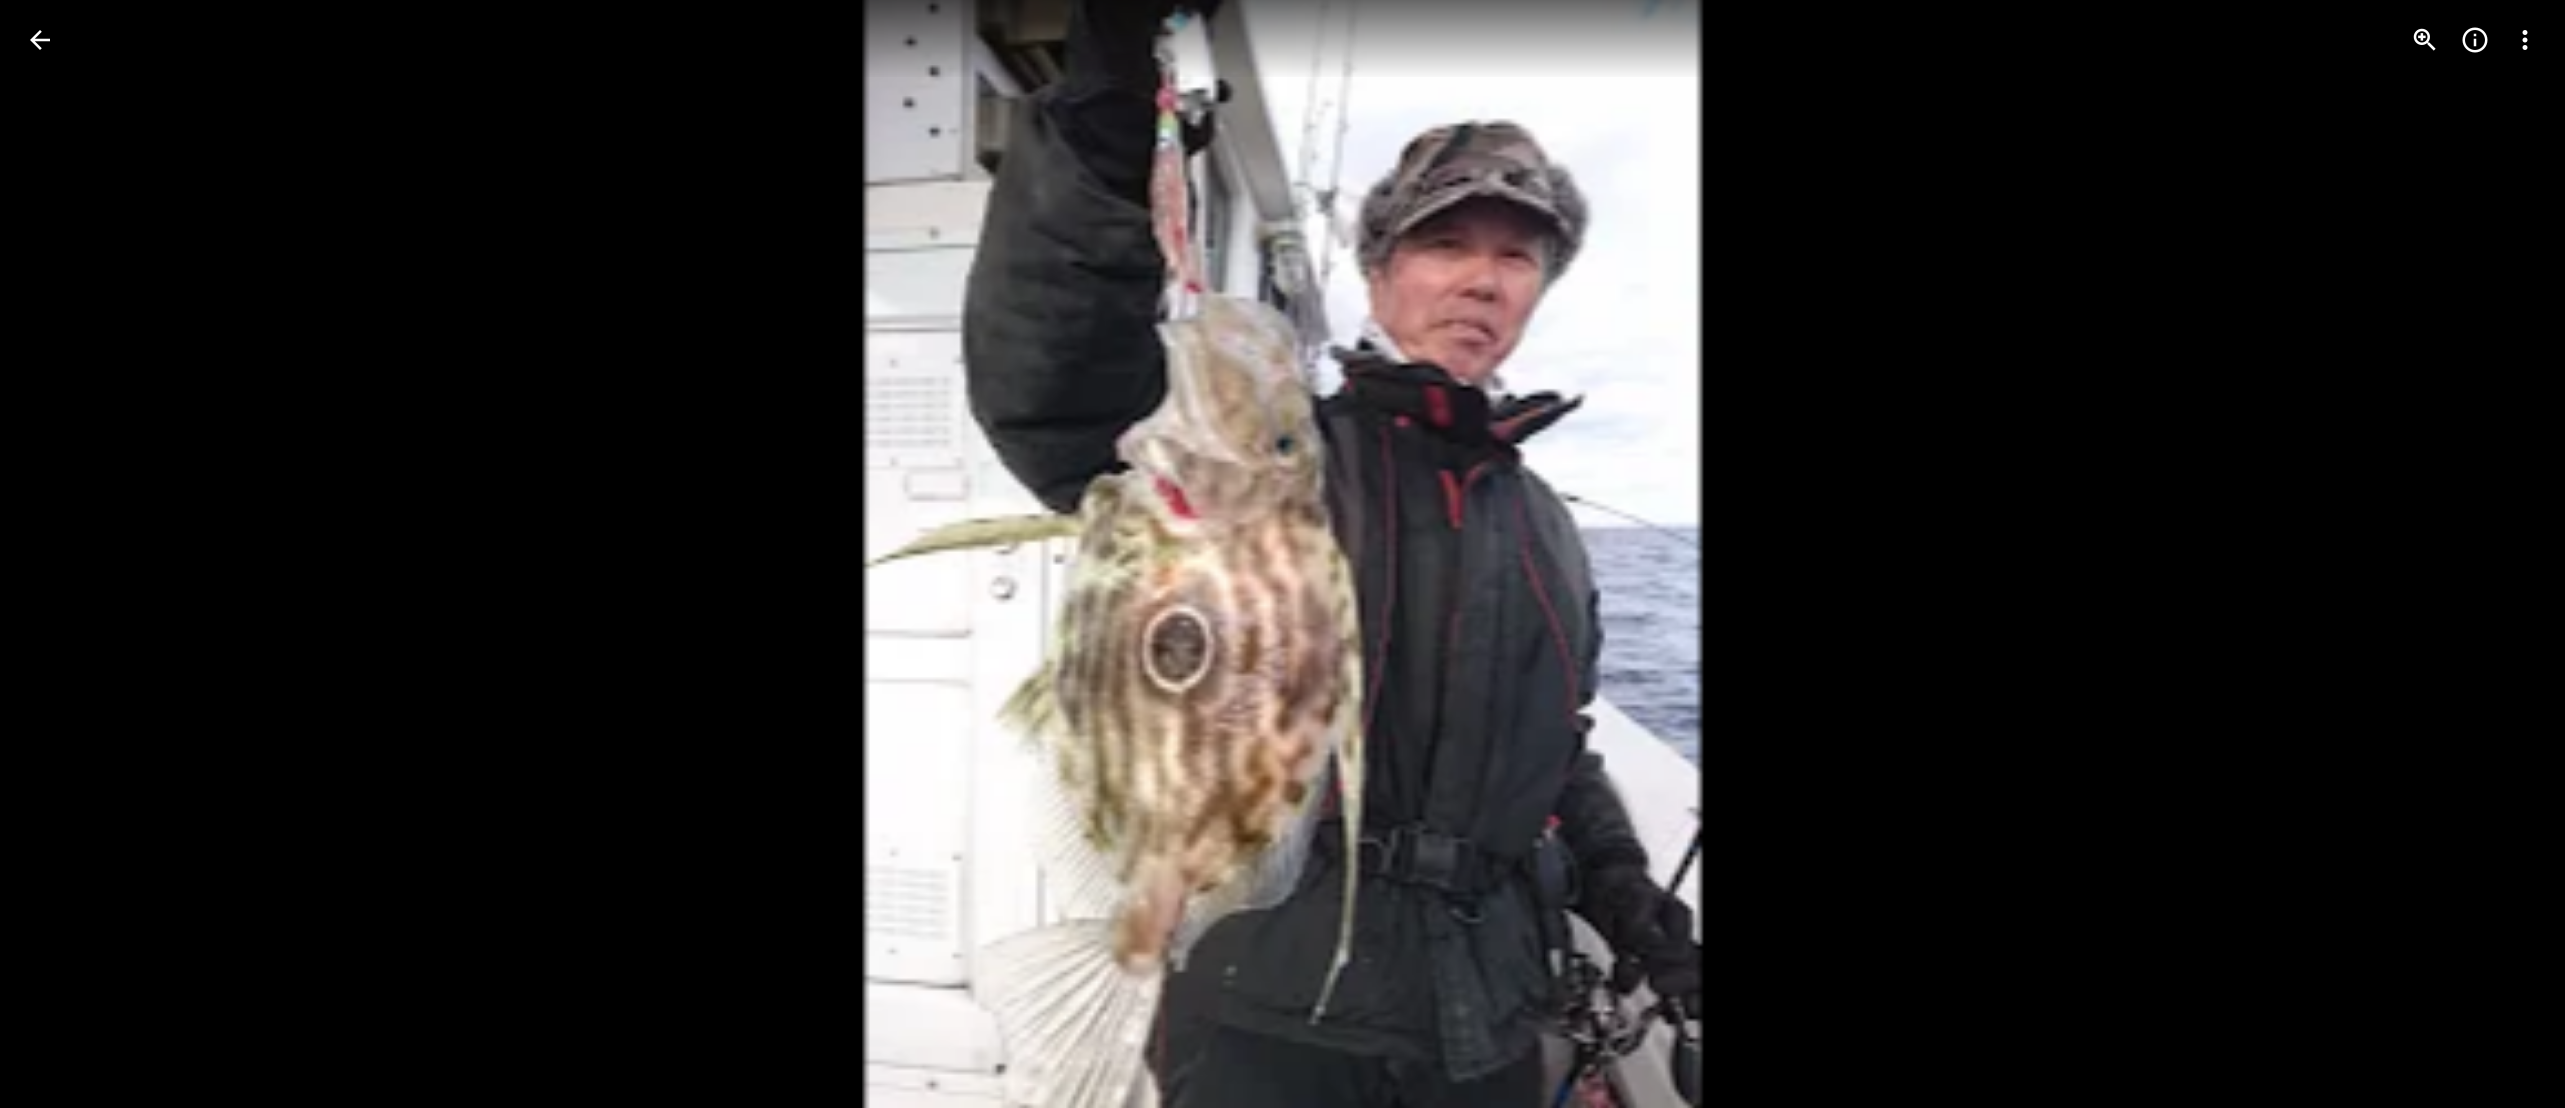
#include <cairo.h>
#include <math.h>
#include <stddef.h>


static void picture(cairo_t *cr, const char *path, double x, double y, double w, double h) {
    cairo_surface_t *image = cairo_image_surface_create_from_png(path);
    cairo_save(cr);
    cairo_set_source_surface(cr, image, x, y);
    cairo_rectangle(cr, x, y, w, h);
    cairo_fill(cr);
    cairo_restore(cr);
    cairo_surface_destroy(image);
}

int main(void) {
    cairo_surface_t *surface = cairo_image_surface_create(CAIRO_FORMAT_RGB24, 2565, 1108);
    cairo_t *cr = cairo_create(surface);
    cairo_font_options_t *options = cairo_font_options_create();
    cairo_font_options_set_hint_metrics(options, CAIRO_HINT_METRICS_OFF);
    cairo_font_options_set_hint_style(options, CAIRO_HINT_STYLE_NONE);
    cairo_set_font_options(cr, options);
    cairo_set_miter_limit(cr, 4);
    cairo_pattern_t *gradient;
    cairo_set_source_rgb(cr, 0, 0, 0);
    cairo_paint(cr);
    picture(cr, "img5.png", 862, 0, 842, 1108);
    gradient = cairo_pattern_create_linear(1283, 0, 1283, 80);
    cairo_pattern_add_color_stop_rgba(gradient, 0, 0, 0, 0, 0.6);
    cairo_pattern_add_color_stop_rgba(gradient, 1, 0, 0, 0, 0);
    cairo_set_source(cr, gradient);
    cairo_pattern_destroy(gradient);
    cairo_rectangle(cr, 862, 0, 842, 77);
    cairo_fill(cr);
    picture(cr, "img1.png", 30, 30, 20, 20);
    picture(cr, "img2.png", 2413, 28, 23, 23);
    picture(cr, "img3.png", 2462, 27, 26, 26);
    picture(cr, "img4.png", 2522, 30, 6, 20);
    cairo_surface_write_to_png(surface, "page.png");
    cairo_font_options_destroy(options);
    cairo_destroy(cr);
    cairo_surface_destroy(surface);
    return 0;
}
